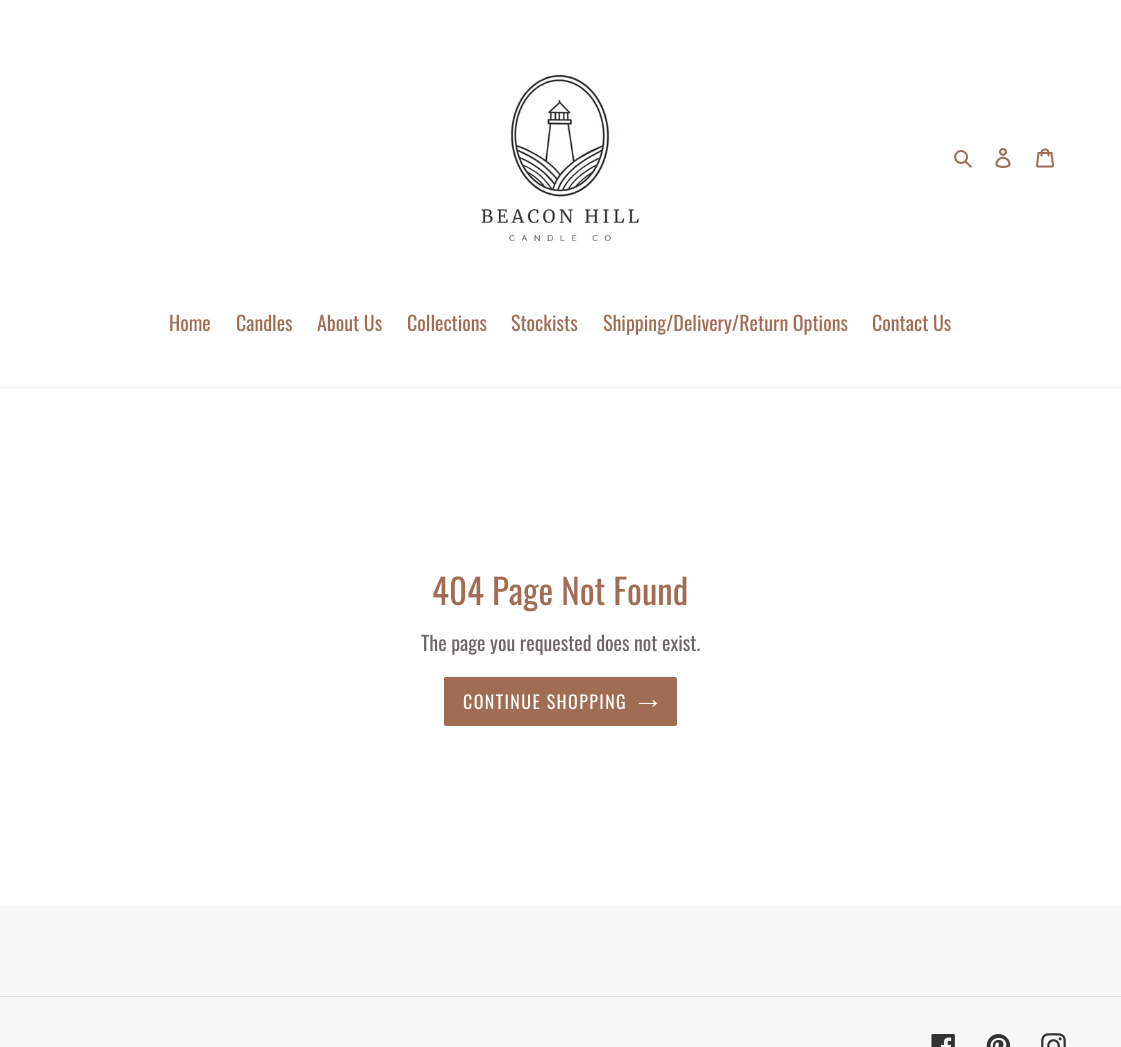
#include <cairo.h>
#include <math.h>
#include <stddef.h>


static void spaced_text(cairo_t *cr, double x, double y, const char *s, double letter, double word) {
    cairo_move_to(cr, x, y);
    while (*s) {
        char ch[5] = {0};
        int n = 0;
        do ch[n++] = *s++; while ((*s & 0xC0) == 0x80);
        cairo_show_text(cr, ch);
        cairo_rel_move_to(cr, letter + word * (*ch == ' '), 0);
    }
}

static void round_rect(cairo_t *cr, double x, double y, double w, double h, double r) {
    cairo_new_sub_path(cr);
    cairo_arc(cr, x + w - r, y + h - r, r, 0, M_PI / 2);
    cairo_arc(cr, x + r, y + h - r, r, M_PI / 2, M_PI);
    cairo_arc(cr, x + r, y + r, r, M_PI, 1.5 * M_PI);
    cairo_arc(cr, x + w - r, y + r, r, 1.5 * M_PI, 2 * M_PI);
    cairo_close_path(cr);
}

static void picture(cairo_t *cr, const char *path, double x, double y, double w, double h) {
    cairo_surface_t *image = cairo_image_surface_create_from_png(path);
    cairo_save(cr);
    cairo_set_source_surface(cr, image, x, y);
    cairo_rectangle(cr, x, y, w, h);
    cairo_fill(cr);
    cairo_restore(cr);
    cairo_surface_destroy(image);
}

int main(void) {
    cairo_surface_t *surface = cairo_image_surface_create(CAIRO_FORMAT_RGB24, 1121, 1047);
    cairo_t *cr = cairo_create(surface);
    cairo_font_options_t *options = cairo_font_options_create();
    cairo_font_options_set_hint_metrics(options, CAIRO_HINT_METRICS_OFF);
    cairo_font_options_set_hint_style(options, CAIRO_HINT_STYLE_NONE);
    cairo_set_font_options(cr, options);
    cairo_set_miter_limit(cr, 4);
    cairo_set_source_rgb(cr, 1, 1, 1);
    cairo_paint(cr);
    picture(cr, "img1.png", 481, 74, 159, 167);
    picture(cr, "img2.png", 954, 150, 18, 18);
    picture(cr, "img3.png", 995, 148, 16, 20);
    picture(cr, "img4.png", 1036, 148, 18, 20);
    cairo_set_source_rgb(cr, 0.922, 0.922, 0.922);
    cairo_rectangle(cr, 0, 387, 1121, 1);
    cairo_fill(cr);
    cairo_select_font_face(cr, "Oswald", CAIRO_FONT_SLANT_NORMAL, CAIRO_FONT_WEIGHT_NORMAL);
    cairo_set_font_size(cr, 20);
    cairo_set_source_rgb(cr, 0.627, 0.427, 0.329);
    cairo_move_to(cr, 169, 331);
    cairo_show_text(cr, "Home");
    cairo_move_to(cr, 236, 331);
    cairo_show_text(cr, "Candles");
    cairo_move_to(cr, 317, 331);
    cairo_show_text(cr, "About Us");
    cairo_move_to(cr, 407, 331);
    cairo_show_text(cr, "Collections");
    cairo_move_to(cr, 511, 331);
    cairo_show_text(cr, "Stockists");
    cairo_move_to(cr, 603, 331);
    cairo_show_text(cr, "Shipping/Delivery/Return Options");
    cairo_move_to(cr, 872, 331);
    cairo_show_text(cr, "Contact Us");
    cairo_set_font_size(cr, 35);
    cairo_move_to(cr, 432, 605);
    cairo_show_text(cr, "404 Page Not Found");
    cairo_set_font_size(cr, 20);
    cairo_set_source_rgb(cr, 0.431, 0.4, 0.4);
    cairo_move_to(cr, 421, 651);
    cairo_show_text(cr, "The page you requested does not exist.");
    cairo_set_source_rgb(cr, 0.627, 0.427, 0.329);
    round_rect(cr, 444, 677, 233, 49, 2);
    cairo_fill(cr);
    cairo_set_font_size(cr, 18);
    cairo_set_source_rgb(cr, 1, 1, 1);
    spaced_text(cr, 463, 709, "CONTINUE SHOPPING", 1.4, 0);
    picture(cr, "img5.png", 638, 699, 20, 8);
    cairo_set_source_rgb(cr, 0.965, 0.965, 0.965);
    cairo_rectangle(cr, 0, 906, 1121, 141);
    cairo_fill(cr);
    cairo_set_source_rgb(cr, 0.867, 0.867, 0.867);
    cairo_rectangle(cr, 0, 996, 1121, 1);
    cairo_fill(cr);
    picture(cr, "img6.png", 931, 1034, 24, 13);
    picture(cr, "img7.png", 986, 1034, 25, 13);
    picture(cr, "img8.png", 1041, 1033, 25, 14);
    cairo_surface_write_to_png(surface, "page.png");
    cairo_font_options_destroy(options);
    cairo_destroy(cr);
    cairo_surface_destroy(surface);
    return 0;
}
